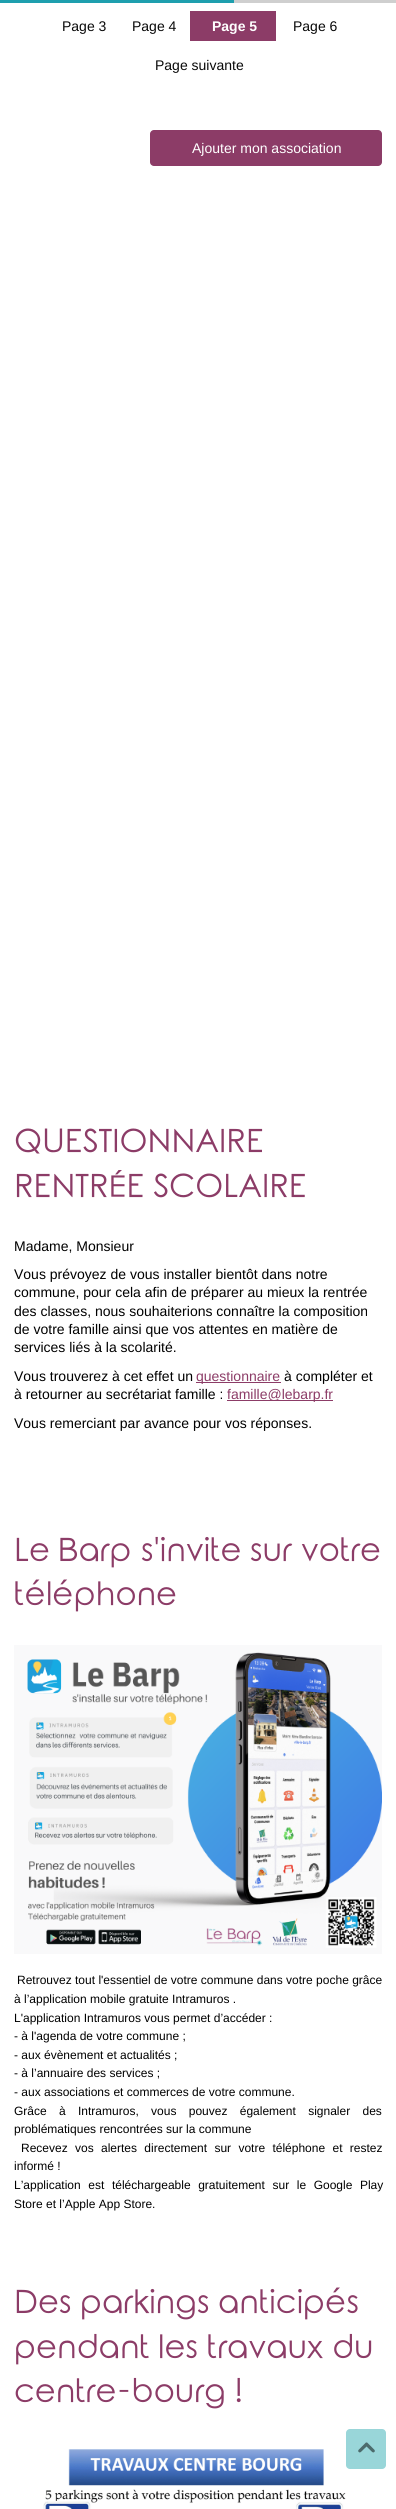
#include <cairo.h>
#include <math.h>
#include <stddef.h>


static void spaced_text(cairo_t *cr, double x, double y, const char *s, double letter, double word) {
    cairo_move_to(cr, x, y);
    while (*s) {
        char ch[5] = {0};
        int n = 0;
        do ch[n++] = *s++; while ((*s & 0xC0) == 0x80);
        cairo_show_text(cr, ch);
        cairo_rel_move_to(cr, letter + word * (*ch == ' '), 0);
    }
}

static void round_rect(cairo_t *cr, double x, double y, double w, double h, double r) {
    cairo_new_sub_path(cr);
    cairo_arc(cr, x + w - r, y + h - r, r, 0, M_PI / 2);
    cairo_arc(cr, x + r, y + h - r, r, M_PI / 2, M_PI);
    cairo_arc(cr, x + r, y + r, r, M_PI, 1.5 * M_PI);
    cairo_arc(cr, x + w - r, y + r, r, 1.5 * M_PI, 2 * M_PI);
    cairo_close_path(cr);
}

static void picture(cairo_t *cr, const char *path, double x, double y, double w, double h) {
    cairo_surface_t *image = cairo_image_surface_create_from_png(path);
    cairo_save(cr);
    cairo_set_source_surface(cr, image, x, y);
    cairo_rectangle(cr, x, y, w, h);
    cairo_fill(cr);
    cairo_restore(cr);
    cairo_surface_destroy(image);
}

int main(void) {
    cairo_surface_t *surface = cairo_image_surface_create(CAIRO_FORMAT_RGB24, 396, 2509);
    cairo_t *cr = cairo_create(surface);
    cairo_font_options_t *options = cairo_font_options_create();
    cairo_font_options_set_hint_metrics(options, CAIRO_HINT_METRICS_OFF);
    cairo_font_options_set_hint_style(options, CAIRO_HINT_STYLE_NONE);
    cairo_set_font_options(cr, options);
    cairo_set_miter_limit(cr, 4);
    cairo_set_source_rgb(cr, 1, 1, 1);
    cairo_paint(cr);
    cairo_set_source_rgb(cr, 0.812, 0.812, 0.812);
    cairo_rectangle(cr, 234, 0, 162, 3);
    cairo_fill(cr);
    cairo_set_source_rgb(cr, 0.118, 0.624, 0.682);
    cairo_rectangle(cr, 0, 0, 234, 3);
    cairo_fill(cr);
    cairo_select_font_face(cr, "Liberation Sans", CAIRO_FONT_SLANT_NORMAL, CAIRO_FONT_WEIGHT_NORMAL);
    cairo_set_font_size(cr, 14);
    cairo_set_source_rgb(cr, 0.039, 0.039, 0.039);
    cairo_move_to(cr, 62, 31);
    cairo_show_text(cr, "Page 3");
    cairo_move_to(cr, 132, 31);
    cairo_show_text(cr, "Page 4");
    cairo_set_source_rgb(cr, 0.549, 0.235, 0.404);
    cairo_rectangle(cr, 190, 11, 86, 30);
    cairo_fill(cr);
    cairo_select_font_face(cr, "Liberation Sans", CAIRO_FONT_SLANT_NORMAL, CAIRO_FONT_WEIGHT_BOLD);
    cairo_set_source_rgb(cr, 1, 1, 1);
    cairo_move_to(cr, 212, 31);
    cairo_show_text(cr, "Page 5");
    cairo_select_font_face(cr, "Liberation Sans", CAIRO_FONT_SLANT_NORMAL, CAIRO_FONT_WEIGHT_NORMAL);
    cairo_set_source_rgb(cr, 0.039, 0.039, 0.039);
    cairo_move_to(cr, 293, 31);
    cairo_show_text(cr, "Page 6");
    cairo_move_to(cr, 155, 70);
    cairo_show_text(cr, "Page suivante");
    cairo_set_source_rgb(cr, 0.549, 0.235, 0.404);
    round_rect(cr, 150, 130, 232, 36, 4);
    cairo_fill(cr);
    cairo_set_source_rgb(cr, 1, 1, 1);
    cairo_move_to(cr, 192, 153);
    cairo_show_text(cr, "Ajouter mon association");
    cairo_select_font_face(cr, "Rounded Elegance", CAIRO_FONT_SLANT_NORMAL, CAIRO_FONT_WEIGHT_NORMAL);
    cairo_set_font_size(cr, 32);
    cairo_set_source_rgb(cr, 0.549, 0.235, 0.404);
    cairo_move_to(cr, 14, 1153);
    cairo_show_text(cr, "QUESTIONNAIRE");
    cairo_move_to(cr, 14, 1198);
    cairo_show_text(cr, "RENTRÉE");
    cairo_move_to(cr, 153, 1198);
    cairo_show_text(cr, "SCOLAIRE");
    cairo_select_font_face(cr, "Liberation Sans", CAIRO_FONT_SLANT_NORMAL, CAIRO_FONT_WEIGHT_NORMAL);
    cairo_set_font_size(cr, 14);
    cairo_set_source_rgb(cr, 0, 0, 0);
    cairo_move_to(cr, 14, 1251);
    cairo_show_text(cr, "Madame, Monsieur");
    cairo_move_to(cr, 14, 1279);
    cairo_show_text(cr, "Vous prévoyez de vous installer bientôt dans notre");
    cairo_move_to(cr, 14, 1297);
    cairo_show_text(cr, "commune, pour cela afin de préparer au mieux la rentrée");
    cairo_move_to(cr, 14, 1316);
    cairo_show_text(cr, "des classes, nous souhaiterions connaître la composition");
    cairo_move_to(cr, 14, 1334);
    cairo_show_text(cr, "de votre famille ainsi que vos attentes en matière de");
    cairo_move_to(cr, 14, 1352);
    cairo_show_text(cr, "services liés à la scolarité.");
    cairo_move_to(cr, 14, 1381);
    cairo_show_text(cr, "Vous trouverez à cet effet un");
    cairo_set_source_rgb(cr, 0.549, 0.235, 0.404);
    cairo_rectangle(cr, 196, 1382, 85, 1);
    cairo_fill(cr);
    cairo_move_to(cr, 196, 1381);
    cairo_show_text(cr, "questionnaire");
    cairo_set_source_rgb(cr, 0, 0, 0);
    cairo_move_to(cr, 284, 1381);
    cairo_show_text(cr, "à compléter et");
    cairo_move_to(cr, 14, 1399);
    cairo_show_text(cr, "à retourner au secrétariat famille :");
    cairo_set_source_rgb(cr, 0.549, 0.235, 0.404);
    cairo_rectangle(cr, 227, 1400, 106, 1);
    cairo_fill(cr);
    cairo_move_to(cr, 227, 1399);
    cairo_show_text(cr, "famille@lebarp.fr");
    cairo_set_source_rgb(cr, 0, 0, 0);
    cairo_move_to(cr, 14, 1428);
    cairo_show_text(cr, "Vous remerciant par avance pour vos réponses.");
    cairo_select_font_face(cr, "Rounded Elegance", CAIRO_FONT_SLANT_NORMAL, CAIRO_FONT_WEIGHT_NORMAL);
    cairo_set_font_size(cr, 32);
    cairo_set_source_rgb(cr, 0.549, 0.235, 0.404);
    cairo_move_to(cr, 14, 1562);
    cairo_show_text(cr, "Le");
    cairo_move_to(cr, 58, 1562);
    cairo_show_text(cr, "Barp");
    cairo_move_to(cr, 141, 1562);
    cairo_show_text(cr, "s'invite");
    cairo_move_to(cr, 250, 1562);
    cairo_show_text(cr, "sur");
    cairo_move_to(cr, 301, 1562);
    cairo_show_text(cr, "votre");
    cairo_move_to(cr, 14, 1606);
    cairo_show_text(cr, "téléphone");
    picture(cr, "img1.png", 14, 1645, 368, 309);
    cairo_select_font_face(cr, "Liberation Sans", CAIRO_FONT_SLANT_NORMAL, CAIRO_FONT_WEIGHT_NORMAL);
    cairo_set_font_size(cr, 12);
    cairo_set_source_rgb(cr, 0, 0, 0);
    cairo_move_to(cr, 17, 1984);
    cairo_show_text(cr, "Retrouvez tout l'essentiel de votre commune dans votre poche grâce");
    cairo_move_to(cr, 14, 2003);
    cairo_show_text(cr, "à l’application mobile gratuite Intramuros .");
    cairo_move_to(cr, 14, 2022);
    cairo_show_text(cr, "L'application Intramuros vous permet d’accéder :");
    cairo_move_to(cr, 14, 2040);
    cairo_show_text(cr, "- à l'agenda de votre commune ;");
    cairo_move_to(cr, 14, 2059);
    cairo_show_text(cr, "- aux évènement et actualités ;");
    cairo_move_to(cr, 14, 2077);
    cairo_show_text(cr, "- à l’annuaire des services ;");
    cairo_move_to(cr, 14, 2096);
    cairo_show_text(cr, "- aux associations et commerces de votre commune.");
    spaced_text(cr, 14, 2115, "Grâce à Intramuros, vous pouvez également signaler des", 0, 9);
    cairo_move_to(cr, 14, 2133);
    cairo_show_text(cr, "problématiques rencontrées sur la commune");
    spaced_text(cr, 21, 2152, "Recevez vos alertes directement sur votre téléphone et restez", 0, 4);
    cairo_move_to(cr, 14, 2170);
    cairo_show_text(cr, "informé !");
    spaced_text(cr, 14, 2189, "L’application est téléchargeable gratuitement sur le Google Play", 0, 4.25);
    cairo_move_to(cr, 14, 2208);
    cairo_show_text(cr, "Store et l’Apple App Store.");
    cairo_select_font_face(cr, "Rounded Elegance", CAIRO_FONT_SLANT_NORMAL, CAIRO_FONT_WEIGHT_NORMAL);
    cairo_set_font_size(cr, 32);
    cairo_set_source_rgb(cr, 0.549, 0.235, 0.404);
    cairo_move_to(cr, 14, 2314);
    cairo_show_text(cr, "Des");
    cairo_move_to(cr, 80, 2314);
    cairo_show_text(cr, "parkings");
    cairo_move_to(cr, 218, 2314);
    cairo_show_text(cr, "anticipés");
    cairo_move_to(cr, 14, 2359);
    cairo_show_text(cr, "pendant");
    cairo_move_to(cr, 158, 2359);
    cairo_show_text(cr, "les");
    cairo_move_to(cr, 207, 2359);
    cairo_show_text(cr, "travaux");
    cairo_move_to(cr, 332, 2359);
    cairo_show_text(cr, "du");
    cairo_move_to(cr, 14, 2403);
    cairo_show_text(cr, "centre-bourg");
    cairo_move_to(cr, 234, 2403);
    cairo_show_text(cr, "!");
    picture(cr, "img2.png", 43, 2449, 303, 60);
    cairo_set_source_rgb(cr, 0.6, 0.839, 0.851);
    round_rect(cr, 346, 2429, 40, 40, 4);
    cairo_fill(cr);
    picture(cr, "img3.png", 358, 2442, 17, 11);
    cairo_surface_write_to_png(surface, "page.png");
    cairo_font_options_destroy(options);
    cairo_destroy(cr);
    cairo_surface_destroy(surface);
    return 0;
}
